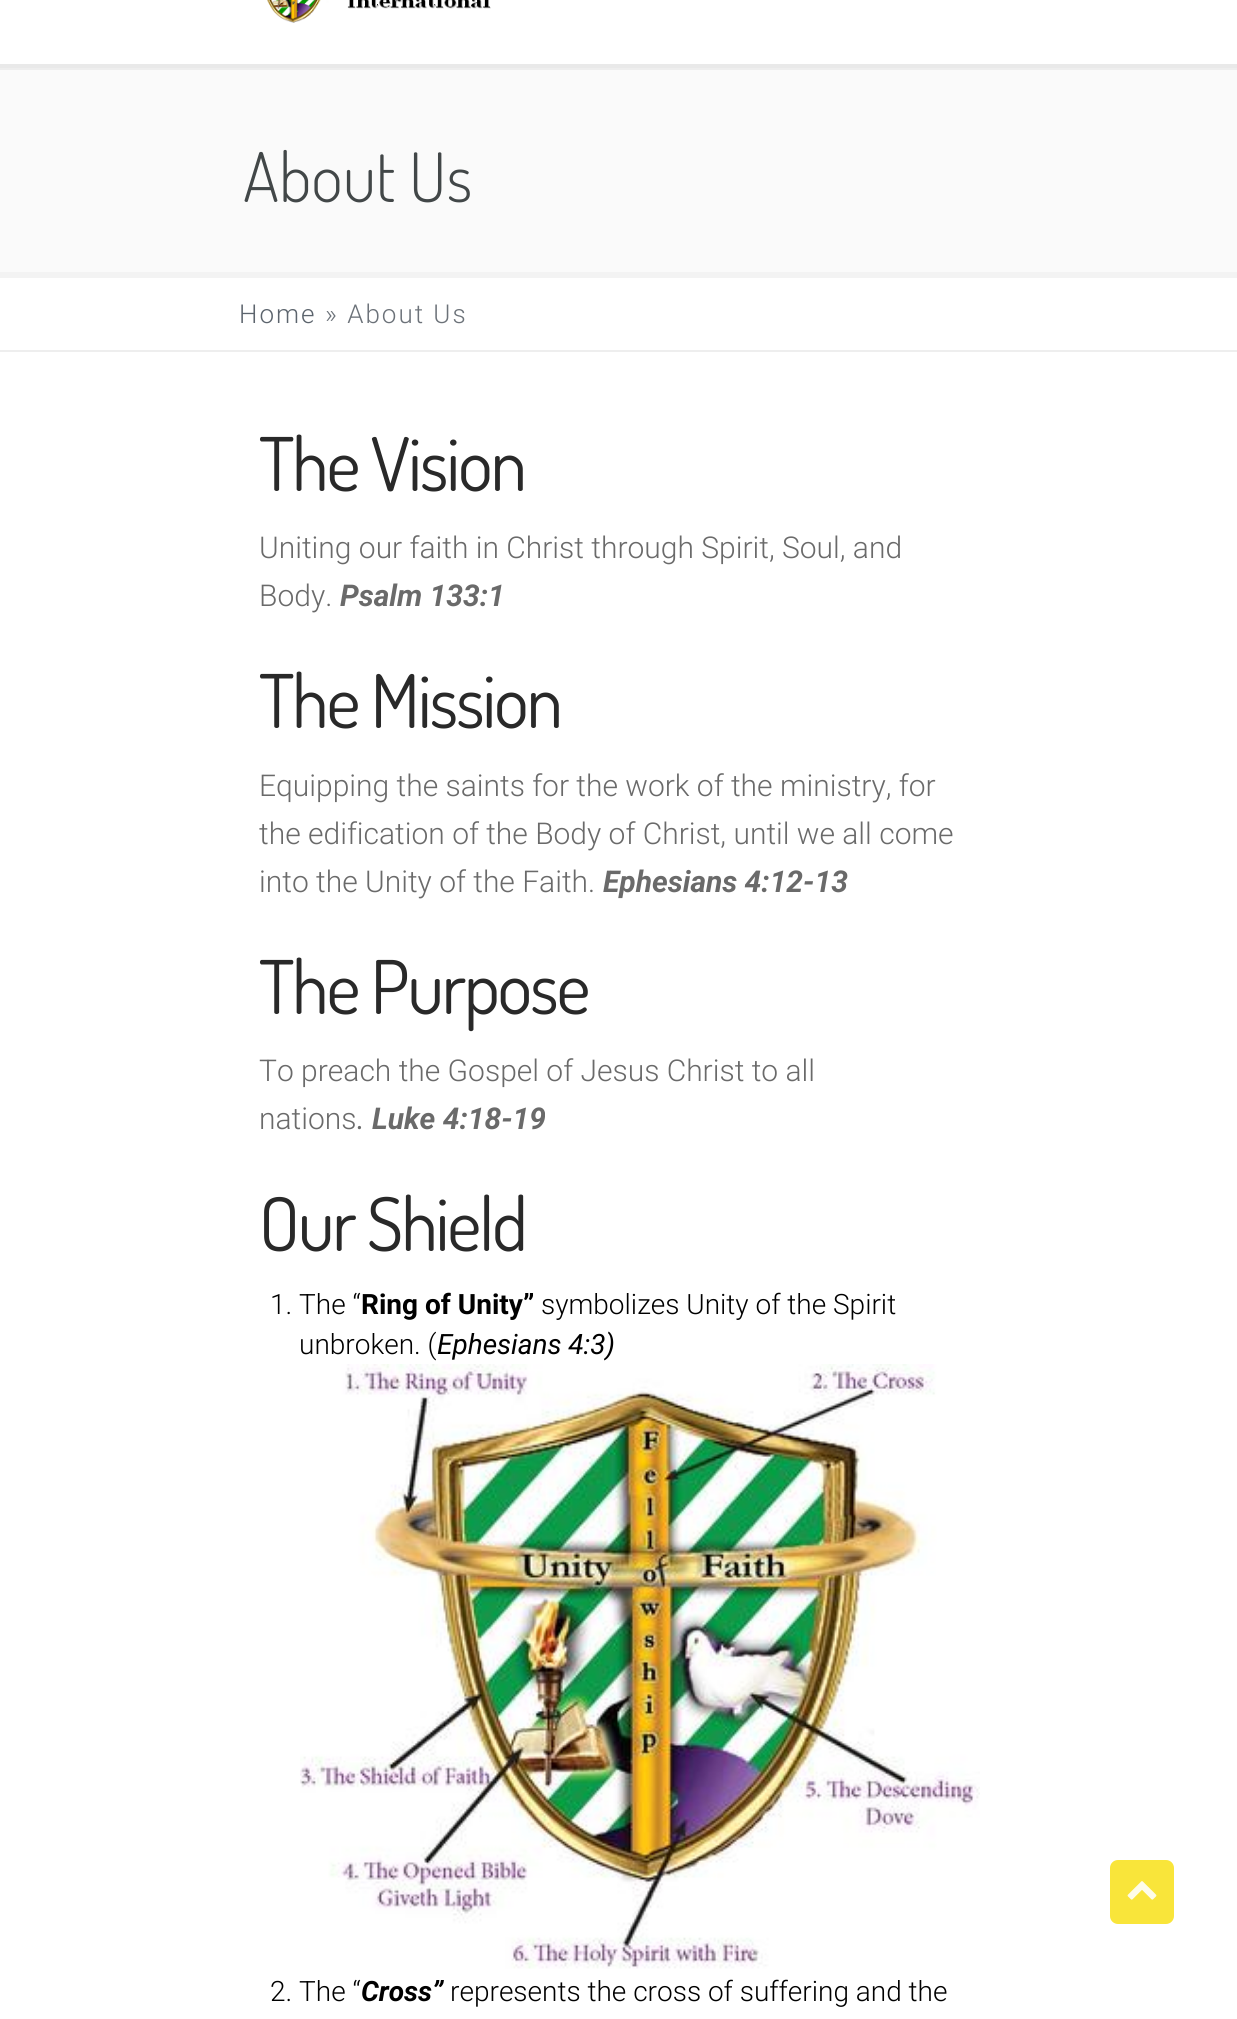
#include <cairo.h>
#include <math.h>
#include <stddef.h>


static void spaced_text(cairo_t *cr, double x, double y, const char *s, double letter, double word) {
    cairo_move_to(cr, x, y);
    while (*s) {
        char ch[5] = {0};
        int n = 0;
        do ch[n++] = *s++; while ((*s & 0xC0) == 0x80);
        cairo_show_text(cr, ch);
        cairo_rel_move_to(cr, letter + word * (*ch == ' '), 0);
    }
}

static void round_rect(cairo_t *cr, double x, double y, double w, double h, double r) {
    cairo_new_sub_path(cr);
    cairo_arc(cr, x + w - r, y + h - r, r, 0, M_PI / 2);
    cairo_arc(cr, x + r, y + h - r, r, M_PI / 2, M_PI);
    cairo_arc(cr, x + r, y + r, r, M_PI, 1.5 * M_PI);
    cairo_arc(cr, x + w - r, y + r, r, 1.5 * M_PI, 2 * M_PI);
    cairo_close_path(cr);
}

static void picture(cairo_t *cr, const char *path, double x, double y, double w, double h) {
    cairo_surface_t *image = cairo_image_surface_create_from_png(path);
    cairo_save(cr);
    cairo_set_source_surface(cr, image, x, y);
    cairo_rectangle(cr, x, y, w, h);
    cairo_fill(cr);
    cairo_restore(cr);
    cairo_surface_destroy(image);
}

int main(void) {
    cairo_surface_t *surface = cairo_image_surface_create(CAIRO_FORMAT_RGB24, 1237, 2019);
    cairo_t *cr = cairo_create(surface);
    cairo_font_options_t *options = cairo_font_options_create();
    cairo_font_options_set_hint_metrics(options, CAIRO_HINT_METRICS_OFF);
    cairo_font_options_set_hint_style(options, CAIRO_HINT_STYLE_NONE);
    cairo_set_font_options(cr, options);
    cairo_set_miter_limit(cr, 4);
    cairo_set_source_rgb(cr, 1, 1, 1);
    cairo_paint(cr);
    cairo_set_source_rgb(cr, 0.914, 0.914, 0.914);
    cairo_rectangle(cr, 0, 64, 1237, 4);
    cairo_fill(cr);
    picture(cr, "img1.png", 267, 0, 224, 23);
    cairo_set_source_rgb(cr, 0.98, 0.98, 0.98);
    cairo_rectangle(cr, 0, 70, 1237, 202);
    cairo_fill(cr);
    cairo_set_source_rgb(cr, 0.933, 0.933, 0.933);
    cairo_rectangle(cr, 0, 68, 1237, 2);
    cairo_fill(cr);
    cairo_set_source_rgb(cr, 0.953, 0.953, 0.953);
    cairo_rectangle(cr, 0, 272, 1237, 6);
    cairo_fill(cr);
    cairo_select_font_face(cr, "Dosis Light", CAIRO_FONT_SLANT_NORMAL, CAIRO_FONT_WEIGHT_NORMAL);
    cairo_set_font_size(cr, 68);
    cairo_set_source_rgb(cr, 0.259, 0.278, 0.282);
    cairo_move_to(cr, 243, 202);
    cairo_show_text(cr, "About Us");
    cairo_set_source_rgb(cr, 0.933, 0.933, 0.933);
    cairo_rectangle(cr, 0, 350, 1237, 2);
    cairo_fill(cr);
    cairo_select_font_face(cr, "Roboto Light", CAIRO_FONT_SLANT_NORMAL, CAIRO_FONT_WEIGHT_NORMAL);
    cairo_set_font_size(cr, 26);
    cairo_set_source_rgb(cr, 0.361, 0.392, 0.427);
    spaced_text(cr, 239, 323, "Home", 2, 0);
    cairo_set_source_rgb(cr, 0.424, 0.447, 0.475);
    spaced_text(cr, 325, 323, "» About Us", 2, 0);
    cairo_select_font_face(cr, "Dosis", CAIRO_FONT_SLANT_NORMAL, CAIRO_FONT_WEIGHT_NORMAL);
    cairo_set_font_size(cr, 74);
    cairo_set_source_rgb(cr, 0.161, 0.161, 0.161);
    spaced_text(cr, 259, 491, "The Vision", -2.25, 0);
    cairo_select_font_face(cr, "Roboto Light", CAIRO_FONT_SLANT_NORMAL, CAIRO_FONT_WEIGHT_NORMAL);
    cairo_set_font_size(cr, 30);
    cairo_set_source_rgb(cr, 0.416, 0.416, 0.416);
    cairo_move_to(cr, 259, 558);
    cairo_show_text(cr, "Uniting our faith in Christ through Spirit, Soul, and");
    cairo_move_to(cr, 259, 606);
    cairo_show_text(cr, "Body.");
    cairo_select_font_face(cr, "Roboto", CAIRO_FONT_SLANT_ITALIC, CAIRO_FONT_WEIGHT_BOLD);
    cairo_move_to(cr, 340, 606);
    cairo_show_text(cr, "Psalm 133:1");
    cairo_select_font_face(cr, "Dosis", CAIRO_FONT_SLANT_NORMAL, CAIRO_FONT_WEIGHT_NORMAL);
    cairo_set_font_size(cr, 74);
    cairo_set_source_rgb(cr, 0.161, 0.161, 0.161);
    spaced_text(cr, 259, 728, "The Mission", -2.25, 0);
    cairo_select_font_face(cr, "Roboto Light", CAIRO_FONT_SLANT_NORMAL, CAIRO_FONT_WEIGHT_NORMAL);
    cairo_set_font_size(cr, 30);
    cairo_set_source_rgb(cr, 0.416, 0.416, 0.416);
    cairo_move_to(cr, 259, 796);
    cairo_show_text(cr, "Equipping the saints for the work of the ministry, for");
    cairo_move_to(cr, 259, 844);
    cairo_show_text(cr, "the edification of the Body of Christ, until we all come");
    cairo_move_to(cr, 259, 892);
    cairo_show_text(cr, "into the Unity of the Faith.");
    cairo_select_font_face(cr, "Roboto", CAIRO_FONT_SLANT_ITALIC, CAIRO_FONT_WEIGHT_BOLD);
    cairo_move_to(cr, 603, 892);
    cairo_show_text(cr, "Ephesians 4:12-13");
    cairo_select_font_face(cr, "Dosis", CAIRO_FONT_SLANT_NORMAL, CAIRO_FONT_WEIGHT_NORMAL);
    cairo_set_font_size(cr, 74);
    cairo_set_source_rgb(cr, 0.161, 0.161, 0.161);
    spaced_text(cr, 259, 1014, "The Purpose", -2.25, 0);
    cairo_select_font_face(cr, "Roboto Light", CAIRO_FONT_SLANT_NORMAL, CAIRO_FONT_WEIGHT_NORMAL);
    cairo_set_font_size(cr, 30);
    cairo_set_source_rgb(cr, 0.416, 0.416, 0.416);
    cairo_move_to(cr, 259, 1081);
    cairo_show_text(cr, "To preach the Gospel of Jesus Christ to all");
    cairo_move_to(cr, 259, 1129);
    cairo_show_text(cr, "nations");
    cairo_select_font_face(cr, "Roboto", CAIRO_FONT_SLANT_ITALIC, CAIRO_FONT_WEIGHT_NORMAL);
    cairo_move_to(cr, 357, 1129);
    cairo_show_text(cr, ".");
    cairo_select_font_face(cr, "Roboto", CAIRO_FONT_SLANT_ITALIC, CAIRO_FONT_WEIGHT_BOLD);
    cairo_move_to(cr, 372, 1129);
    cairo_show_text(cr, "Luke 4:18-19");
    cairo_select_font_face(cr, "Dosis", CAIRO_FONT_SLANT_NORMAL, CAIRO_FONT_WEIGHT_NORMAL);
    cairo_set_font_size(cr, 74);
    cairo_set_source_rgb(cr, 0.161, 0.161, 0.161);
    spaced_text(cr, 259, 1251, "Our Shield", -2.25, 0);
    cairo_select_font_face(cr, "Roboto Light", CAIRO_FONT_SLANT_NORMAL, CAIRO_FONT_WEIGHT_NORMAL);
    cairo_set_font_size(cr, 28);
    cairo_set_source_rgb(cr, 0, 0, 0);
    cairo_move_to(cr, 270, 1314);
    cairo_show_text(cr, "1. The “");
    cairo_select_font_face(cr, "Roboto", CAIRO_FONT_SLANT_NORMAL, CAIRO_FONT_WEIGHT_BOLD);
    cairo_move_to(cr, 361, 1314);
    cairo_show_text(cr, "Ring of Unity”");
    cairo_select_font_face(cr, "Roboto Light", CAIRO_FONT_SLANT_NORMAL, CAIRO_FONT_WEIGHT_NORMAL);
    cairo_move_to(cr, 541, 1314);
    cairo_show_text(cr, "symbolizes Unity of the Spirit");
    cairo_move_to(cr, 299, 1354);
    cairo_show_text(cr, "unbroken. (");
    cairo_select_font_face(cr, "Roboto", CAIRO_FONT_SLANT_ITALIC, CAIRO_FONT_WEIGHT_NORMAL);
    cairo_move_to(cr, 437, 1354);
    cairo_show_text(cr, "Ephesians 4:3)");
    picture(cr, "img2.png", 300, 1364, 680, 605);
    cairo_select_font_face(cr, "Roboto Light", CAIRO_FONT_SLANT_NORMAL, CAIRO_FONT_WEIGHT_NORMAL);
    cairo_move_to(cr, 270, 2001);
    cairo_show_text(cr, "2. The “");
    cairo_select_font_face(cr, "Roboto", CAIRO_FONT_SLANT_ITALIC, CAIRO_FONT_WEIGHT_BOLD);
    cairo_move_to(cr, 361, 2001);
    cairo_show_text(cr, "Cross”");
    cairo_select_font_face(cr, "Roboto Light", CAIRO_FONT_SLANT_NORMAL, CAIRO_FONT_WEIGHT_NORMAL);
    cairo_move_to(cr, 450, 2001);
    cairo_show_text(cr, "represents the cross of suffering and the");
    cairo_set_source_rgb(cr, 0.973, 0.898, 0.227);
    round_rect(cr, 1110, 1860, 64, 64, 8);
    cairo_fill(cr);
    picture(cr, "img3.png", 1127, 1881, 30, 19);
    cairo_surface_write_to_png(surface, "page.png");
    cairo_font_options_destroy(options);
    cairo_destroy(cr);
    cairo_surface_destroy(surface);
    return 0;
}
